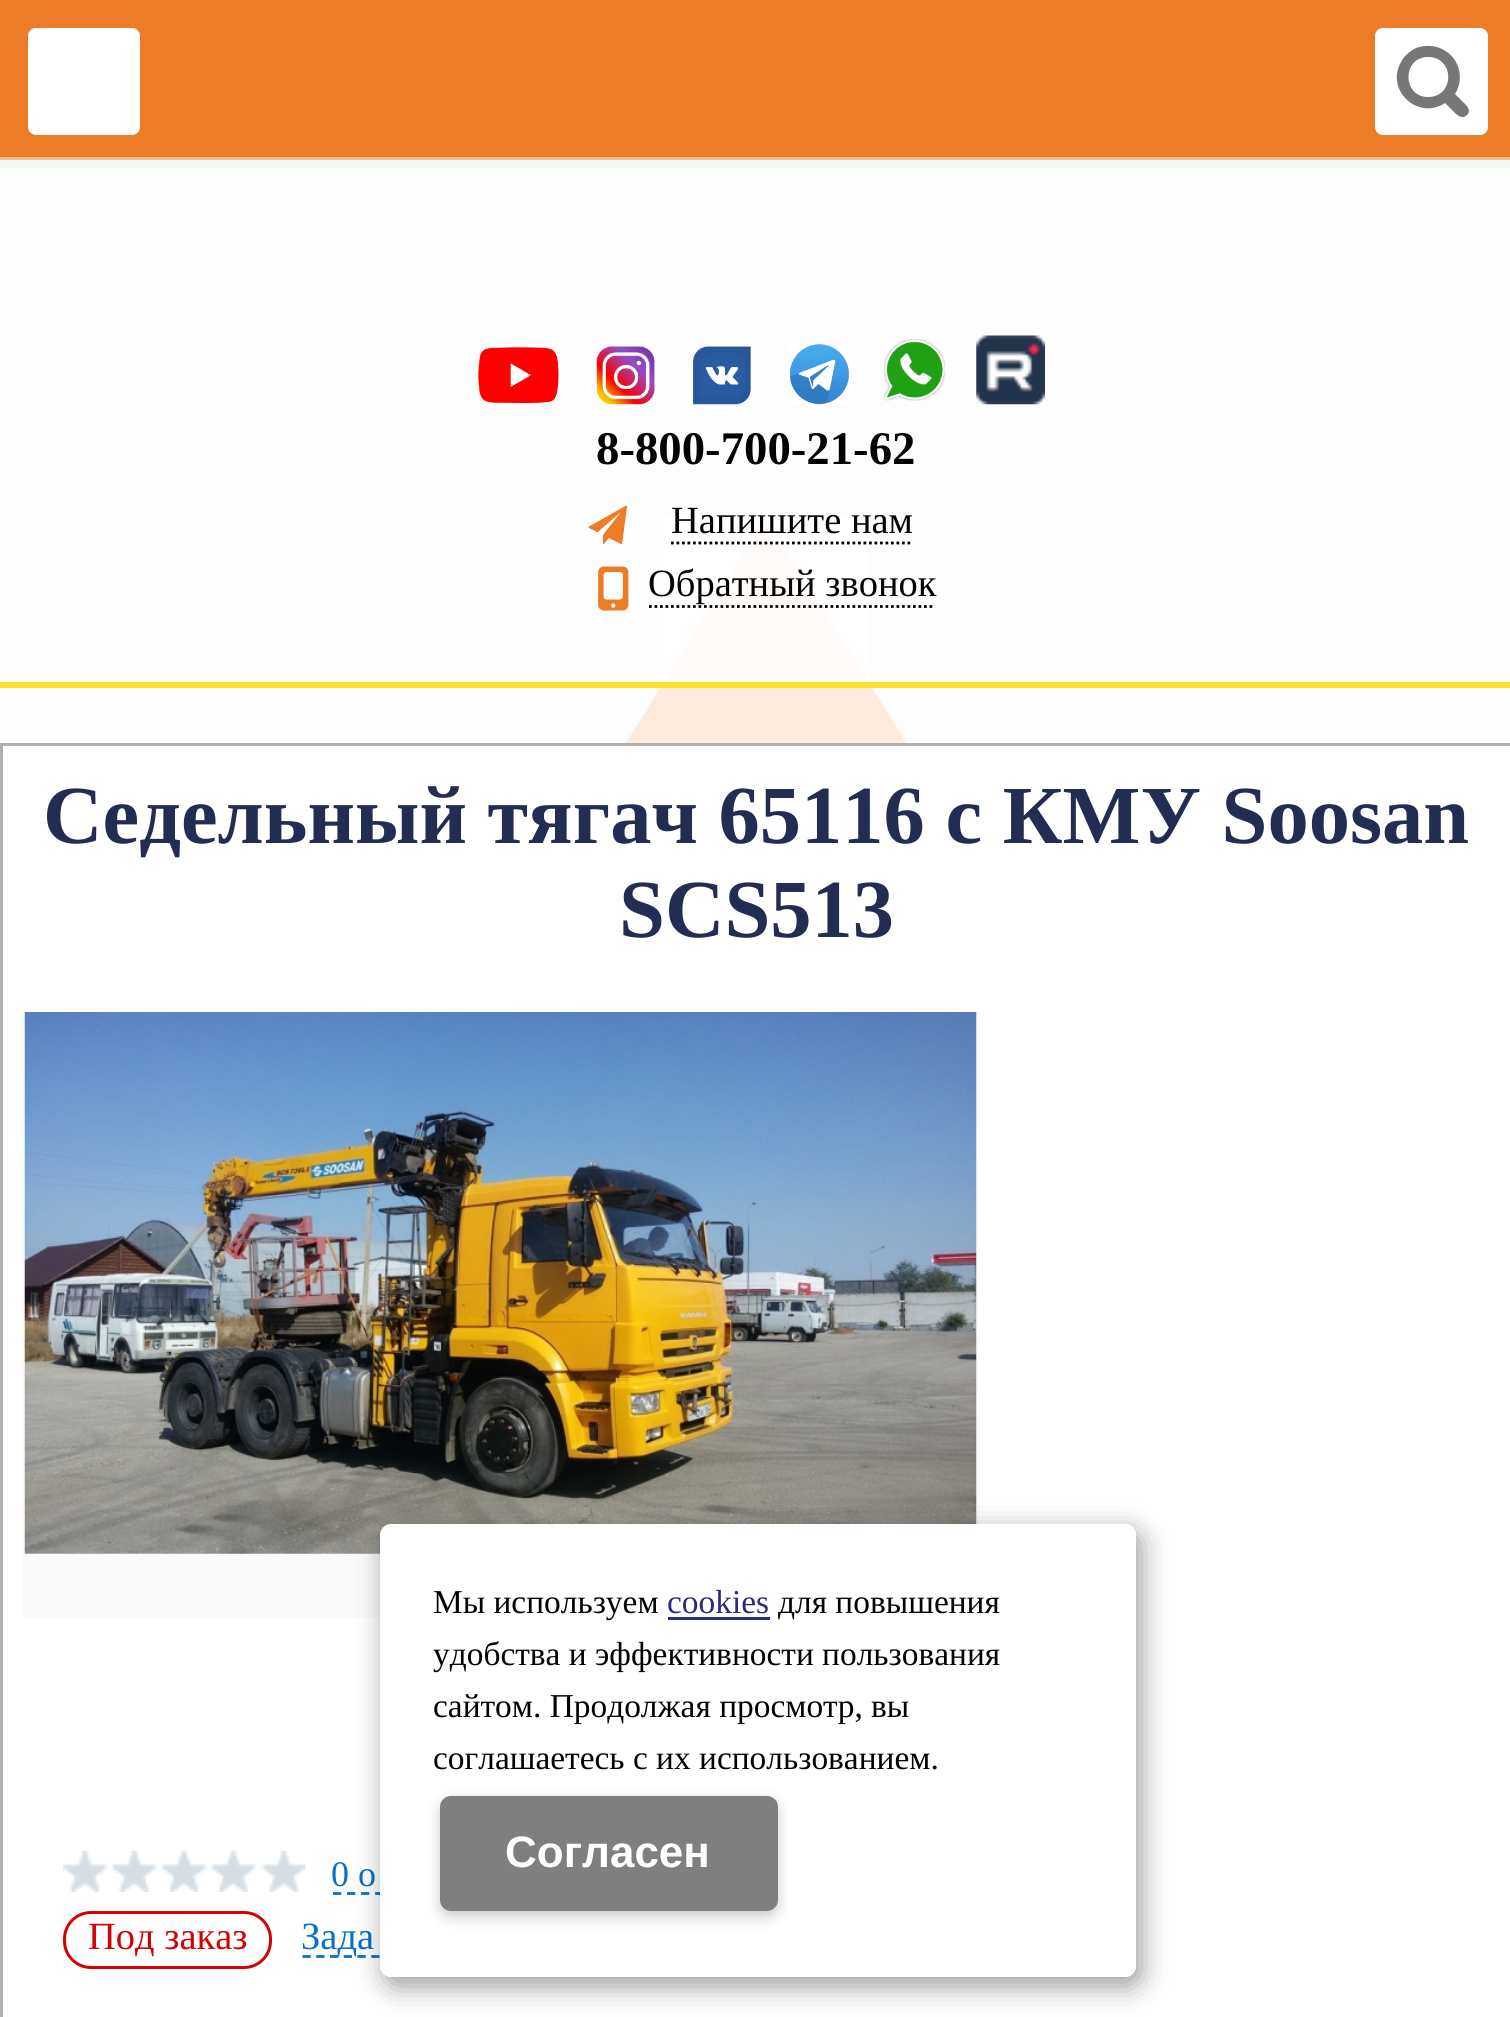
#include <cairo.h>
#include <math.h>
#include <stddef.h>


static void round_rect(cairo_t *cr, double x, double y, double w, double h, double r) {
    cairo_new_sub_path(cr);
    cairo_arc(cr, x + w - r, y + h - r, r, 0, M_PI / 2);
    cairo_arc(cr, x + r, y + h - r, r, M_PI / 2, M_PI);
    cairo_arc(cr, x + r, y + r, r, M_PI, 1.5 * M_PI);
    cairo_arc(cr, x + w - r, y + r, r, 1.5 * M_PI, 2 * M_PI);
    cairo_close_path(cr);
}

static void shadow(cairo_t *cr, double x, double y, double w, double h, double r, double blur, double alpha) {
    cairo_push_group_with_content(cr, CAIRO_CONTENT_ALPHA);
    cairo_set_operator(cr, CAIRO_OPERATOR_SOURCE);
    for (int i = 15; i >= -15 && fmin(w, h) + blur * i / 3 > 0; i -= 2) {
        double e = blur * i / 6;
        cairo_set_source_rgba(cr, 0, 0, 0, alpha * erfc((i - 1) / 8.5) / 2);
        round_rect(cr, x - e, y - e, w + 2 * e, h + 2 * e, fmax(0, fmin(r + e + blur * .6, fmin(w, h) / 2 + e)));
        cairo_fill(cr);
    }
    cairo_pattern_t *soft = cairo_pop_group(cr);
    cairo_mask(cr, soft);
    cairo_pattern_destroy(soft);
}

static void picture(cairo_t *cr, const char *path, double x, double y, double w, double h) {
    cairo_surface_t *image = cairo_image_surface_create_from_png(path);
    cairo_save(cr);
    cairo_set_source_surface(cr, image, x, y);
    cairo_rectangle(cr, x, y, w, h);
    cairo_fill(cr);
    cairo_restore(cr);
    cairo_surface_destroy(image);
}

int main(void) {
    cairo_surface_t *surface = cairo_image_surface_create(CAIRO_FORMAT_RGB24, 1510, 2017);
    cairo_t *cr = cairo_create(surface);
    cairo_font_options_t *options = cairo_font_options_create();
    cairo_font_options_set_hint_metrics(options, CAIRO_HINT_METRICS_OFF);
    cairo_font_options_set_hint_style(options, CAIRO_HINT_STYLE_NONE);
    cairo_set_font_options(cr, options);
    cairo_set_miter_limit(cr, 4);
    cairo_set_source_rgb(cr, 0.957, 0.973, 0.957);
    cairo_paint(cr);
    cairo_set_source_rgb(cr, 0.925, 0.486, 0.145);
    cairo_rectangle(cr, 0, 0, 1510, 157);
    cairo_fill(cr);
    cairo_set_source_rgb(cr, 0.965, 0.745, 0.573);
    cairo_rectangle(cr, 0, 157, 1510, 3);
    cairo_fill(cr);
    cairo_set_source_rgb(cr, 1, 1, 1);
    round_rect(cr, 28, 28, 112, 107, 8);
    cairo_fill(cr);
    round_rect(cr, 1375, 28, 113, 107, 8);
    cairo_fill(cr);
    cairo_set_source_rgb(cr, 0.467, 0.467, 0.467);
    cairo_new_path(cr);
    cairo_move_to(cr, 1467, 115);
    cairo_curve_to(cr, 1462, 120, 1457, 115, 1453, 111);
    cairo_line_to(cr, 1445, 103);
    cairo_curve_to(cr, 1418, 121, 1385, 90, 1401, 62);
    cairo_curve_to(cr, 1404, 56, 1410, 51, 1416, 48);
    cairo_curve_to(cr, 1424, 45, 1434, 45, 1442, 49);
    cairo_curve_to(cr, 1459, 57, 1465, 78, 1455, 94);
    cairo_line_to(cr, 1463, 102);
    cairo_curve_to(cr, 1466, 105, 1472, 110, 1467, 115);
    cairo_close_path(cr);
    cairo_move_to(cr, 1428, 57);
    cairo_curve_to(cr, 1402, 57, 1402, 97, 1428, 97);
    cairo_curve_to(cr, 1455, 97, 1455, 57, 1428, 57);
    cairo_close_path(cr);
    cairo_fill(cr);
    picture(cr, "img1.png", 0, 168, 1510, 575);
    cairo_set_source_rgba(cr, 1, 1, 1, 0.79);
    cairo_rectangle(cr, 663, 515, 207, 167);
    cairo_fill(cr);
    picture(cr, "img2.png", 478, 347, 81, 56);
    picture(cr, "img3.png", 596, 346, 59, 59);
    picture(cr, "img4.png", 693, 346, 58, 59);
    picture(cr, "img5.png", 790, 344, 59, 61);
    picture(cr, "img6.png", 884, 339, 61, 62);
    picture(cr, "img7.png", 976, 335, 69, 70);
    cairo_select_font_face(cr, "Liberation Serif", CAIRO_FONT_SLANT_NORMAL, CAIRO_FONT_WEIGHT_BOLD);
    cairo_set_font_size(cr, 46.75);
    cairo_set_source_rgb(cr, 0.012, 0.012, 0.012);
    cairo_move_to(cr, 596, 464);
    cairo_show_text(cr, "8-800-700-21-62");
    picture(cr, "img8.png", 588, 505, 39, 40);
    cairo_new_path(cr);
    cairo_move_to(cr, 671, 543);
    cairo_line_to(cr, 913, 543);
    cairo_set_line_width(cr, 2.8);
    cairo_set_dash(cr, (double[]){2.75, 2.75}, 2, 0);
    cairo_stroke(cr);
    cairo_select_font_face(cr, "Liberation Serif", CAIRO_FONT_SLANT_NORMAL, CAIRO_FONT_WEIGHT_NORMAL);
    cairo_set_font_size(cr, 38.5);
    cairo_move_to(cr, 671, 533);
    cairo_show_text(cr, "Напишите нам");
    picture(cr, "img9.png", 598, 566, 31, 45);
    cairo_new_path(cr);
    cairo_move_to(cr, 649, 606.5);
    cairo_line_to(cr, 935, 606.5);
    cairo_stroke(cr);
    cairo_move_to(cr, 648, 596);
    cairo_show_text(cr, "Обратный звонок");
    cairo_set_source_rgb(cr, 1, 0.882, 0.169);
    cairo_rectangle(cr, 0, 682, 1510, 6);
    cairo_fill(cr);
    cairo_set_source_rgb(cr, 1, 1, 1);
    cairo_rectangle(cr, 1.5, 744.5, 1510, 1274);
    cairo_fill_preserve(cr);
    cairo_set_source_rgb(cr, 0.69, 0.69, 0.69);
    cairo_set_line_width(cr, 3);
    cairo_set_dash(cr, NULL, 0, 0);
    cairo_stroke(cr);
    cairo_select_font_face(cr, "Liberation Serif", CAIRO_FONT_SLANT_NORMAL, CAIRO_FONT_WEIGHT_BOLD);
    cairo_set_font_size(cr, 82.5);
    cairo_set_source_rgb(cr, 0.137, 0.176, 0.325);
    cairo_move_to(cr, 43, 843);
    cairo_show_text(cr, "Седельный тягач 65116 с КМУ Soosan");
    cairo_move_to(cr, 619, 937);
    cairo_show_text(cr, "SCS513");
    cairo_set_source_rgb(cr, 0.98, 0.98, 0.984);
    cairo_rectangle(cr, 22, 1012, 957, 605);
    cairo_fill(cr);
    picture(cr, "img10.png", 24, 1012, 953, 542);
    picture(cr, "img11.png", 63, 1850, 243, 42);
    cairo_new_path(cr);
    cairo_move_to(cr, 333, 1893.5);
    cairo_line_to(cr, 481, 1893.5);
    cairo_set_source_rgb(cr, 0.035, 0.443, 0.8);
    cairo_set_line_width(cr, 2.8);
    cairo_set_dash(cr, (double[]){8.25, 5.78}, 2, 0);
    cairo_stroke(cr);
    cairo_select_font_face(cr, "Liberation Serif", CAIRO_FONT_SLANT_NORMAL, CAIRO_FONT_WEIGHT_NORMAL);
    cairo_set_font_size(cr, 36);
    cairo_move_to(cr, 331, 1886);
    cairo_show_text(cr, "0 о");
    round_rect(cr, 64.5, 1912.5, 206, 55, 26.5);
    cairo_set_source_rgb(cr, 0.824, 0.012, 0.012);
    cairo_set_line_width(cr, 3);
    cairo_set_dash(cr, NULL, 0, 0);
    cairo_stroke(cr);
    cairo_set_font_size(cr, 38.5);
    cairo_move_to(cr, 88, 1949);
    cairo_show_text(cr, "Под заказ");
    cairo_new_path(cr);
    cairo_move_to(cr, 302.5, 1956.5);
    cairo_line_to(cr, 696, 1956.5);
    cairo_set_source_rgb(cr, 0.035, 0.443, 0.8);
    cairo_set_line_width(cr, 2.8);
    cairo_set_dash(cr, (double[]){8.25, 5.5}, 2, 0);
    cairo_stroke(cr);
    cairo_move_to(cr, 301, 1949);
    cairo_show_text(cr, "Зада");
    cairo_save(cr);
    cairo_set_fill_rule(cr, CAIRO_FILL_RULE_EVEN_ODD);
    cairo_new_path(cr);
    cairo_move_to(cr, 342, 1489);
    cairo_line_to(cr, 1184, 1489);
    cairo_line_to(cr, 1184, 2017);
    cairo_line_to(cr, 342, 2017);
    cairo_close_path(cr);
    cairo_move_to(cr, 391, 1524);
    cairo_line_to(cr, 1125, 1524);
    cairo_curve_to(cr, 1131, 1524, 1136, 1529, 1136, 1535);
    cairo_line_to(cr, 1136, 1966);
    cairo_curve_to(cr, 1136, 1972, 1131, 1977, 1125, 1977);
    cairo_line_to(cr, 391, 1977);
    cairo_curve_to(cr, 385, 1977, 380, 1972, 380, 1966);
    cairo_line_to(cr, 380, 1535);
    cairo_curve_to(cr, 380, 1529, 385, 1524, 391, 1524);
    cairo_close_path(cr);
    cairo_clip(cr);
    cairo_set_source_rgb(cr, 0, 0, 0);
    shadow(cr, 385, 1532, 756, 454, 11, 14, 0.4);
    cairo_restore(cr);
    cairo_set_source_rgb(cr, 1, 1, 1);
    round_rect(cr, 380, 1524, 756, 453, 11);
    cairo_fill(cr);
    cairo_set_font_size(cr, 33.4);
    cairo_set_source_rgb(cr, 0.012, 0.012, 0.012);
    cairo_move_to(cr, 433, 1613);
    cairo_show_text(cr, "Мы используем");
    cairo_set_source_rgb(cr, 0.169, 0.173, 0.486);
    cairo_move_to(cr, 667, 1613);
    cairo_show_text(cr, "cookies");
    cairo_rectangle(cr, 668, 1617, 102, 3);
    cairo_fill(cr);
    cairo_set_source_rgb(cr, 0.012, 0.012, 0.012);
    cairo_move_to(cr, 778, 1613);
    cairo_show_text(cr, "для повышения");
    cairo_move_to(cr, 433, 1665);
    cairo_show_text(cr, "удобства и эффективности пользования");
    cairo_move_to(cr, 433, 1717);
    cairo_show_text(cr, "сайтом. Продолжая просмотр, вы");
    cairo_move_to(cr, 433, 1769);
    cairo_show_text(cr, "соглашаетесь с их использованием.");
    cairo_set_source_rgb(cr, 0, 0, 0);
    shadow(cr, 440, 1801, 338, 116, 11, 7, 0.2);
    cairo_set_source_rgb(cr, 0.498, 0.498, 0.498);
    round_rect(cr, 440, 1796, 338, 115, 11);
    cairo_fill(cr);
    cairo_select_font_face(cr, "Liberation Sans", CAIRO_FONT_SLANT_NORMAL, CAIRO_FONT_WEIGHT_BOLD);
    cairo_set_font_size(cr, 44);
    cairo_set_source_rgb(cr, 1, 1, 1);
    cairo_move_to(cr, 505, 1867);
    cairo_show_text(cr, "Cогласен");
    cairo_surface_write_to_png(surface, "page.png");
    cairo_font_options_destroy(options);
    cairo_destroy(cr);
    cairo_surface_destroy(surface);
    return 0;
}
